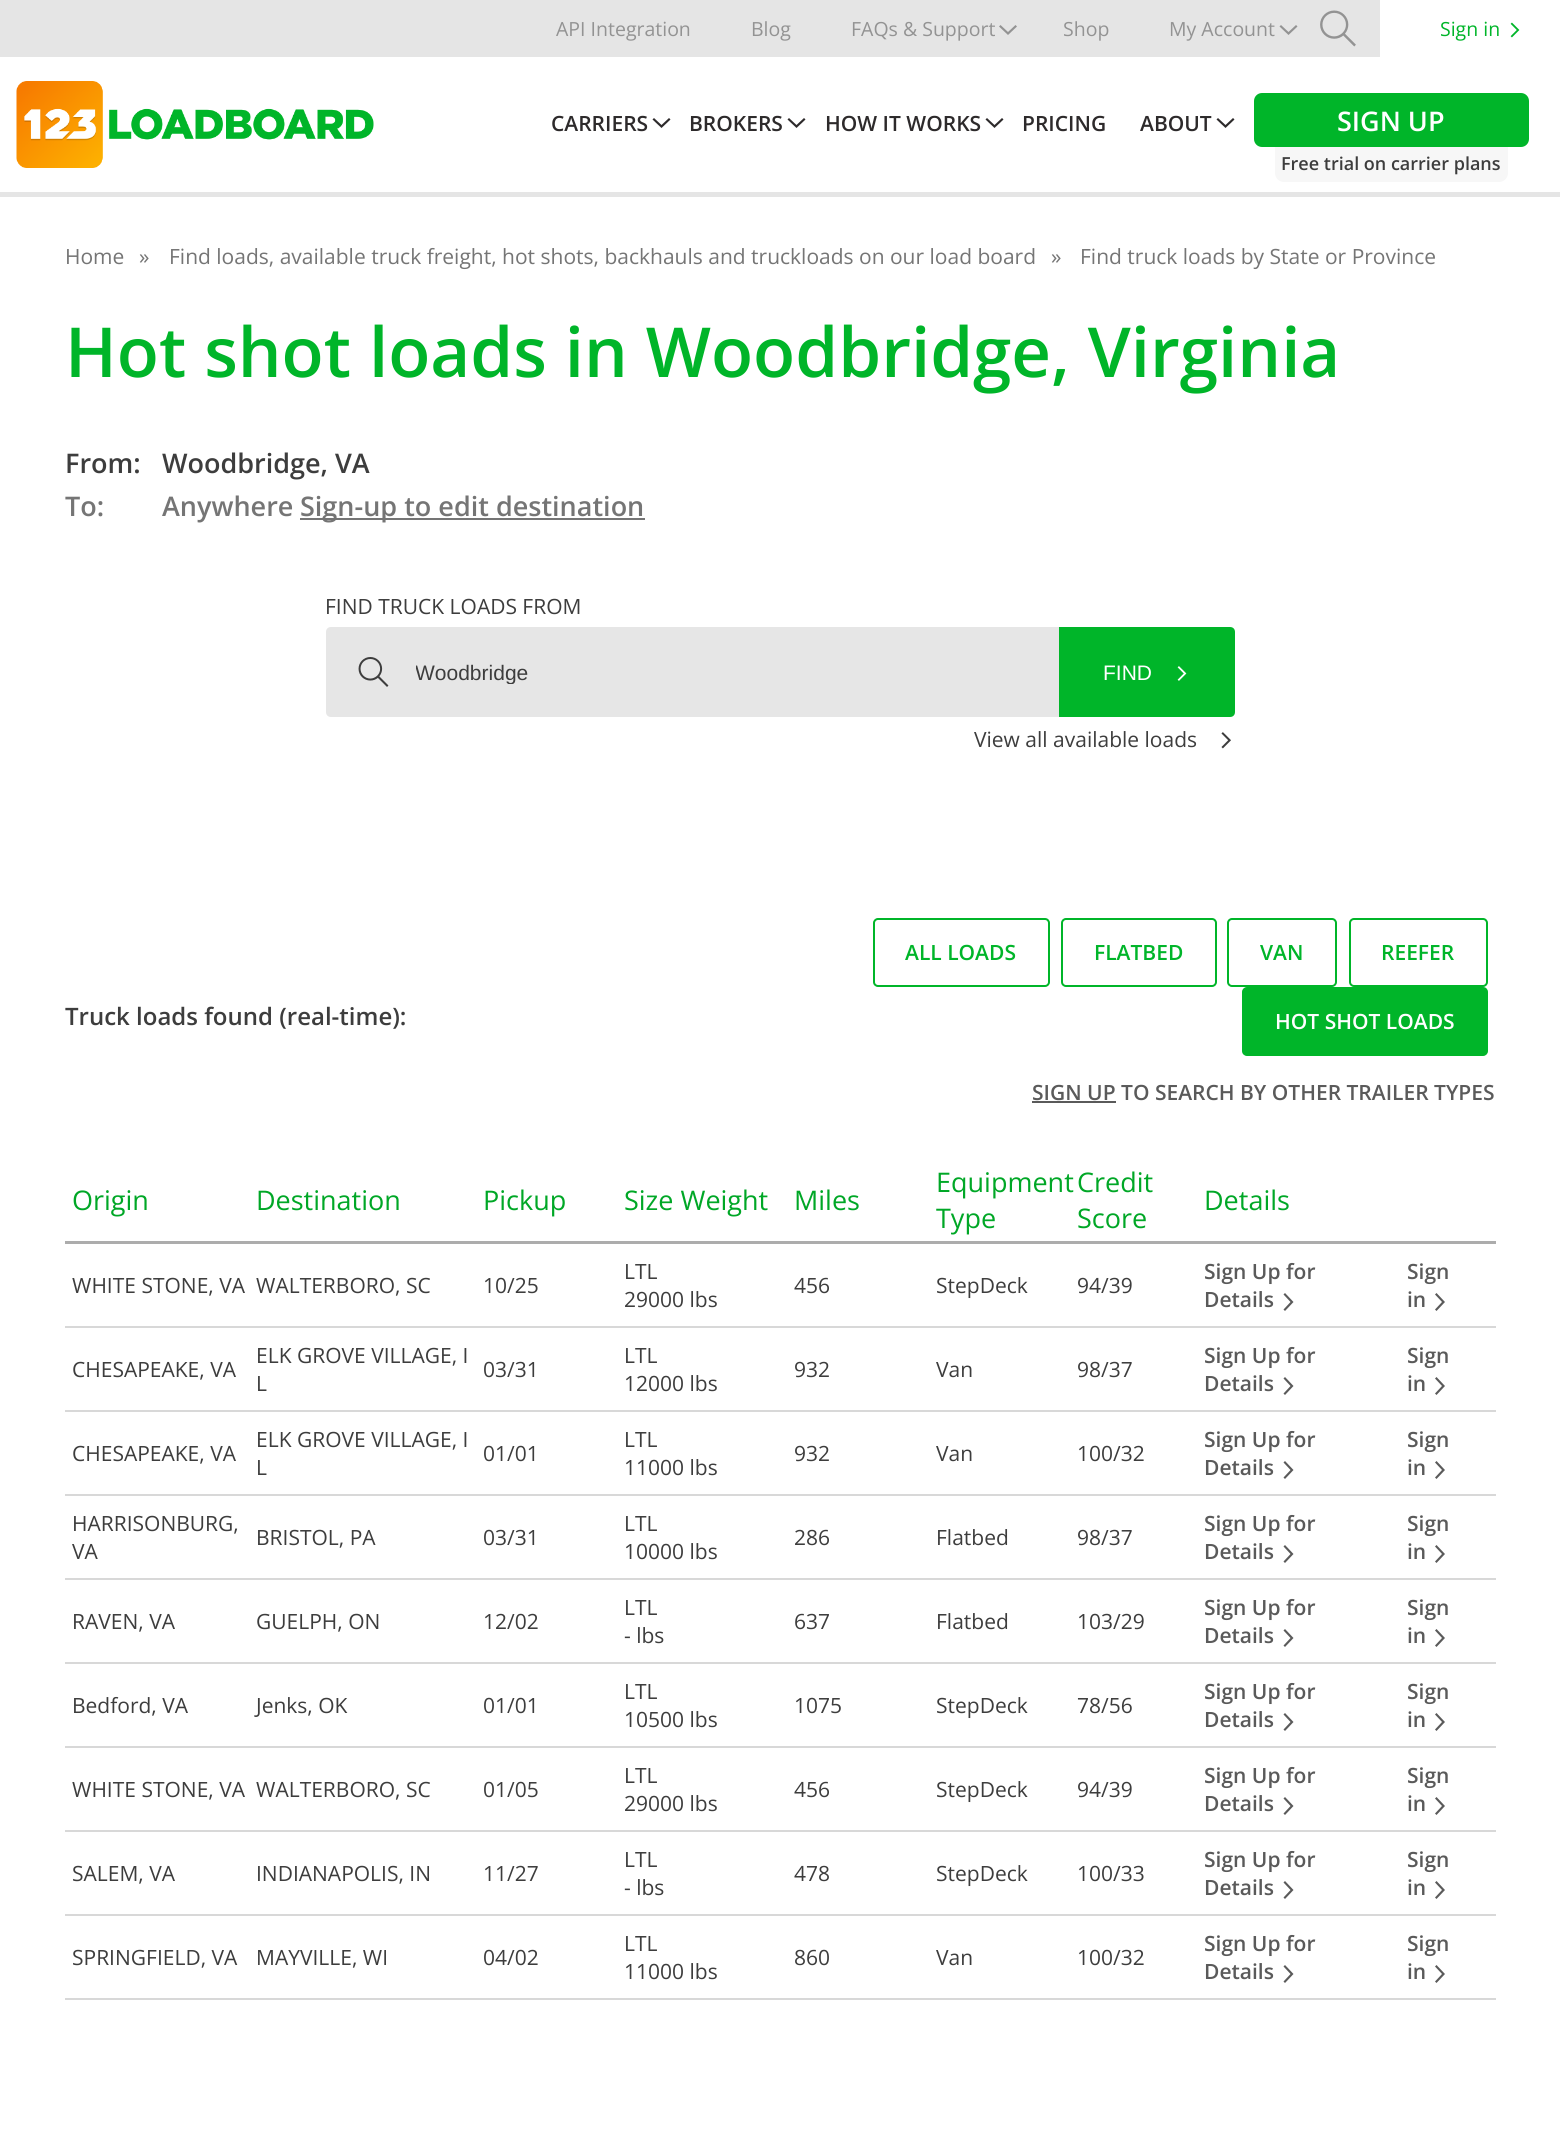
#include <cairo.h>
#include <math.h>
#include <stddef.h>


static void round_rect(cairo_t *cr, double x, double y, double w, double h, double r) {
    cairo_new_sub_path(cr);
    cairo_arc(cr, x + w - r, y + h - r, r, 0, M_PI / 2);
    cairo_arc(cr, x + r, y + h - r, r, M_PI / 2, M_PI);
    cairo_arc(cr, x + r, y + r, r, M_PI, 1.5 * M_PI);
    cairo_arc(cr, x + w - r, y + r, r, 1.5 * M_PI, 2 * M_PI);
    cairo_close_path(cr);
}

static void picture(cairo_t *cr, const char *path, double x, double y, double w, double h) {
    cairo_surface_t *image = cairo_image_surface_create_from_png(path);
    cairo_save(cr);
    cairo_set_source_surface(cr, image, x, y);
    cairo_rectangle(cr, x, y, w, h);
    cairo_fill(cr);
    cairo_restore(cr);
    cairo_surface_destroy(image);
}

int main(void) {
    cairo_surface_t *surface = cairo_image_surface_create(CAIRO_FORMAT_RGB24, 1560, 2135);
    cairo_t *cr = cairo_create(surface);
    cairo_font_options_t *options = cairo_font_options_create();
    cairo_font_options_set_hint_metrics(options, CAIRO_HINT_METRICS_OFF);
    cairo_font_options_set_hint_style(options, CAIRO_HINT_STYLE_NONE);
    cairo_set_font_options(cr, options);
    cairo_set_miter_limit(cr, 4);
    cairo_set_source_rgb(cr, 1, 1, 1);
    cairo_paint(cr);
    cairo_set_source_rgb(cr, 0.898, 0.898, 0.898);
    cairo_rectangle(cr, 0, 0, 1380, 57);
    cairo_fill(cr);
    cairo_select_font_face(cr, "Open Sans", CAIRO_FONT_SLANT_NORMAL, CAIRO_FONT_WEIGHT_NORMAL);
    cairo_set_font_size(cr, 19.5);
    cairo_set_source_rgb(cr, 0.576, 0.576, 0.576);
    cairo_move_to(cr, 556, 36);
    cairo_show_text(cr, "API Integration");
    cairo_move_to(cr, 751, 36);
    cairo_show_text(cr, "Blog");
    cairo_move_to(cr, 851, 36);
    cairo_show_text(cr, "FAQs & Support");
    cairo_new_path(cr);
    cairo_move_to(cr, 1015.5, 25);
    cairo_line_to(cr, 1017, 26.5);
    cairo_line_to(cr, 1008, 35);
    cairo_line_to(cr, 999, 26.5);
    cairo_line_to(cr, 1000.5, 25);
    cairo_line_to(cr, 1008, 32);
    cairo_close_path(cr);
    cairo_fill(cr);
    cairo_move_to(cr, 1063, 36);
    cairo_show_text(cr, "Shop");
    cairo_move_to(cr, 1169, 36);
    cairo_show_text(cr, "My Account");
    cairo_new_path(cr);
    cairo_move_to(cr, 1296, 25);
    cairo_line_to(cr, 1297.5, 26.5);
    cairo_line_to(cr, 1288.5, 35);
    cairo_line_to(cr, 1279.5, 26.5);
    cairo_line_to(cr, 1281, 25);
    cairo_line_to(cr, 1288.5, 32);
    cairo_close_path(cr);
    cairo_fill(cr);
    picture(cr, "img1.png", 1320, 10, 36, 37);
    cairo_set_source_rgb(cr, 0, 0.71, 0.161);
    cairo_move_to(cr, 1440, 36);
    cairo_show_text(cr, "Sign in");
    picture(cr, "img2.png", 1510, 22, 10, 16);
    cairo_set_source_rgb(cr, 0.898, 0.898, 0.898);
    cairo_rectangle(cr, 0, 192, 1560, 5);
    cairo_fill(cr);
    picture(cr, "img3.png", 16, 81, 358, 87);
    cairo_select_font_face(cr, "Open Sans SemiBold", CAIRO_FONT_SLANT_NORMAL, CAIRO_FONT_WEIGHT_NORMAL);
    cairo_set_font_size(cr, 21);
    cairo_set_source_rgb(cr, 0.176, 0.165, 0.169);
    cairo_move_to(cr, 551, 131);
    cairo_show_text(cr, "CARRIERS");
    cairo_new_path(cr);
    cairo_move_to(cr, 669, 118);
    cairo_line_to(cr, 670.5, 119.5);
    cairo_line_to(cr, 661.5, 128);
    cairo_line_to(cr, 652.5, 119.5);
    cairo_line_to(cr, 654, 118);
    cairo_line_to(cr, 661.5, 125);
    cairo_close_path(cr);
    cairo_fill(cr);
    cairo_move_to(cr, 689, 131);
    cairo_show_text(cr, "BROKERS");
    cairo_new_path(cr);
    cairo_move_to(cr, 804, 118);
    cairo_line_to(cr, 805.5, 119.5);
    cairo_line_to(cr, 796.5, 128);
    cairo_line_to(cr, 787.5, 119.5);
    cairo_line_to(cr, 789, 118);
    cairo_line_to(cr, 796.5, 125);
    cairo_close_path(cr);
    cairo_fill(cr);
    cairo_move_to(cr, 825, 131);
    cairo_show_text(cr, "HOW IT WORKS");
    cairo_new_path(cr);
    cairo_move_to(cr, 1002, 118);
    cairo_line_to(cr, 1003.5, 119.5);
    cairo_line_to(cr, 994.5, 128);
    cairo_line_to(cr, 985.5, 119.5);
    cairo_line_to(cr, 987, 118);
    cairo_line_to(cr, 994.5, 125);
    cairo_close_path(cr);
    cairo_fill(cr);
    cairo_move_to(cr, 1022, 131);
    cairo_show_text(cr, "PRICING");
    cairo_move_to(cr, 1140, 131);
    cairo_show_text(cr, "ABOUT");
    cairo_new_path(cr);
    cairo_move_to(cr, 1233, 118);
    cairo_line_to(cr, 1234.5, 119.5);
    cairo_line_to(cr, 1225.5, 128);
    cairo_line_to(cr, 1216.5, 119.5);
    cairo_line_to(cr, 1218, 118);
    cairo_line_to(cr, 1225.5, 125);
    cairo_close_path(cr);
    cairo_fill(cr);
    cairo_set_source_rgb(cr, 0, 0.71, 0.161);
    round_rect(cr, 1254, 93, 275, 54, 8);
    cairo_fill(cr);
    cairo_set_font_size(cr, 27);
    cairo_set_source_rgb(cr, 1, 1, 1);
    cairo_move_to(cr, 1337, 131);
    cairo_show_text(cr, "SIGN UP");
    cairo_set_source_rgb(cr, 0.965, 0.965, 0.965);
    cairo_new_path(cr);
    cairo_move_to(cr, 1275, 147);
    cairo_line_to(cr, 1508, 147);
    cairo_line_to(cr, 1508, 173);
    cairo_curve_to(cr, 1508, 178, 1504, 182, 1499, 182);
    cairo_line_to(cr, 1284, 182);
    cairo_curve_to(cr, 1279, 182, 1275, 178, 1275, 173);
    cairo_close_path(cr);
    cairo_fill(cr);
    cairo_set_font_size(cr, 18);
    cairo_set_source_rgb(cr, 0.239, 0.239, 0.239);
    cairo_move_to(cr, 1281, 170);
    cairo_show_text(cr, "Free trial on carrier plans");
    cairo_select_font_face(cr, "Open Sans", CAIRO_FONT_SLANT_NORMAL, CAIRO_FONT_WEIGHT_NORMAL);
    cairo_set_font_size(cr, 21);
    cairo_set_source_rgb(cr, 0.459, 0.459, 0.459);
    cairo_move_to(cr, 65, 264);
    cairo_show_text(cr, "Home");
    cairo_move_to(cr, 139, 264);
    cairo_show_text(cr, "»");
    cairo_move_to(cr, 169, 264);
    cairo_show_text(cr, "Find loads, available truck freight, hot shots, backhauls and truckloads on our load board");
    cairo_move_to(cr, 1051, 264);
    cairo_show_text(cr, "»");
    cairo_move_to(cr, 1080, 264);
    cairo_show_text(cr, "Find truck loads by State or Province");
    cairo_select_font_face(cr, "Open Sans SemiBold", CAIRO_FONT_SLANT_NORMAL, CAIRO_FONT_WEIGHT_NORMAL);
    cairo_set_font_size(cr, 69);
    cairo_set_source_rgb(cr, 0, 0.71, 0.161);
    cairo_move_to(cr, 65, 377);
    cairo_show_text(cr, "Hot shot loads in Woodbridge, Virginia");
    cairo_set_font_size(cr, 27);
    cairo_set_source_rgb(cr, 0.239, 0.239, 0.239);
    cairo_move_to(cr, 65, 473);
    cairo_show_text(cr, "From:");
    cairo_move_to(cr, 162, 473);
    cairo_show_text(cr, "Woodbridge, VA");
    cairo_set_source_rgb(cr, 0.459, 0.459, 0.459);
    cairo_move_to(cr, 65, 516);
    cairo_show_text(cr, "To:");
    cairo_move_to(cr, 162, 516);
    cairo_show_text(cr, "Anywhere");
    cairo_rectangle(cr, 300, 518, 345, 2);
    cairo_fill(cr);
    cairo_move_to(cr, 300, 516);
    cairo_show_text(cr, "Sign-up to edit destination");
    cairo_select_font_face(cr, "Open Sans", CAIRO_FONT_SLANT_NORMAL, CAIRO_FONT_WEIGHT_NORMAL);
    cairo_set_font_size(cr, 21);
    cairo_set_source_rgb(cr, 0.239, 0.239, 0.239);
    cairo_move_to(cr, 325, 614);
    cairo_show_text(cr, "FIND TRUCK LOADS FROM");
    cairo_set_source_rgb(cr, 0.902, 0.902, 0.902);
    cairo_new_path(cr);
    cairo_move_to(cr, 331, 627);
    cairo_line_to(cr, 1160, 627);
    cairo_line_to(cr, 1160, 717);
    cairo_line_to(cr, 331, 717);
    cairo_curve_to(cr, 328, 717, 326, 715, 326, 712);
    cairo_line_to(cr, 326, 632);
    cairo_curve_to(cr, 326, 629, 328, 627, 331, 627);
    cairo_close_path(cr);
    cairo_fill(cr);
    picture(cr, "img4.png", 358, 657, 31, 30);
    cairo_save(cr);
    cairo_rectangle(cr, 416, 660, 741, 24);
    cairo_clip(cr);
    cairo_select_font_face(cr, "Liberation Sans", CAIRO_FONT_SLANT_NORMAL, CAIRO_FONT_WEIGHT_NORMAL);
    cairo_set_source_rgb(cr, 0.239, 0.239, 0.239);
    cairo_move_to(cr, 415, 680);
    cairo_show_text(cr, "Woodbridge");
    cairo_restore(cr);
    cairo_set_source_rgb(cr, 0, 0.71, 0.161);
    cairo_new_path(cr);
    cairo_move_to(cr, 1059, 627);
    cairo_line_to(cr, 1230, 627);
    cairo_curve_to(cr, 1233, 627, 1235, 629, 1235, 632);
    cairo_line_to(cr, 1235, 712);
    cairo_curve_to(cr, 1235, 715, 1233, 717, 1230, 717);
    cairo_line_to(cr, 1059, 717);
    cairo_close_path(cr);
    cairo_fill(cr);
    cairo_select_font_face(cr, "Liberation Sans", CAIRO_FONT_SLANT_NORMAL, CAIRO_FONT_WEIGHT_NORMAL);
    cairo_set_source_rgb(cr, 1, 1, 1);
    cairo_move_to(cr, 1103, 680);
    cairo_show_text(cr, "FIND");
    picture(cr, "img5.png", 1177, 666, 10, 15);
    cairo_select_font_face(cr, "Open Sans", CAIRO_FONT_SLANT_NORMAL, CAIRO_FONT_WEIGHT_NORMAL);
    cairo_set_source_rgb(cr, 0.239, 0.239, 0.239);
    cairo_move_to(cr, 974, 747);
    cairo_show_text(cr, "View all available loads");
    picture(cr, "img6.png", 1221, 732, 10, 17);
    cairo_select_font_face(cr, "Open Sans SemiBold", CAIRO_FONT_SLANT_NORMAL, CAIRO_FONT_WEIGHT_NORMAL);
    cairo_set_font_size(cr, 24);
    cairo_move_to(cr, 65, 1025);
    cairo_show_text(cr, "Truck loads found (real-time):");
    round_rect(cr, 874, 919, 175, 67, 4);
    cairo_set_source_rgb(cr, 0, 0.71, 0.161);
    cairo_stroke(cr);
    cairo_set_font_size(cr, 21);
    cairo_move_to(cr, 905, 960);
    cairo_show_text(cr, "ALL LOADS");
    round_rect(cr, 1062, 919, 154, 67, 4);
    cairo_stroke(cr);
    cairo_move_to(cr, 1094, 960);
    cairo_show_text(cr, "FLATBED");
    round_rect(cr, 1228, 919, 108, 67, 4);
    cairo_stroke(cr);
    cairo_move_to(cr, 1260, 960);
    cairo_show_text(cr, "VAN");
    round_rect(cr, 1350, 919, 137, 67, 4);
    cairo_stroke(cr);
    cairo_move_to(cr, 1381, 960);
    cairo_show_text(cr, "REEFER");
    round_rect(cr, 1243, 988, 244, 67, 4);
    cairo_fill_preserve(cr);
    cairo_stroke(cr);
    cairo_set_source_rgb(cr, 1, 1, 1);
    cairo_move_to(cr, 1275, 1029);
    cairo_show_text(cr, "HOT SHOT LOADS");
    cairo_set_source_rgb(cr, 0.353, 0.353, 0.353);
    cairo_move_to(cr, 1032, 1100);
    cairo_show_text(cr, "SIGN UP TO SEARCH BY OTHER TRAILER TYPES");
    cairo_rectangle(cr, 1032, 1101, 84, 2);
    cairo_fill(cr);
    cairo_set_source_rgb(cr, 0.675, 0.675, 0.675);
    cairo_rectangle(cr, 65, 1241, 1431, 3);
    cairo_fill(cr);
    cairo_select_font_face(cr, "Open Sans", CAIRO_FONT_SLANT_NORMAL, CAIRO_FONT_WEIGHT_NORMAL);
    cairo_set_font_size(cr, 27);
    cairo_set_source_rgb(cr, 0, 0.655, 0.149);
    cairo_move_to(cr, 72, 1210);
    cairo_show_text(cr, "Origin");
    cairo_move_to(cr, 256, 1210);
    cairo_show_text(cr, "Destination");
    cairo_move_to(cr, 483, 1210);
    cairo_show_text(cr, "Pickup");
    cairo_move_to(cr, 624, 1210);
    cairo_show_text(cr, "Size Weight");
    cairo_move_to(cr, 794, 1210);
    cairo_show_text(cr, "Miles");
    cairo_move_to(cr, 936, 1192);
    cairo_show_text(cr, "Equipment");
    cairo_move_to(cr, 936, 1228);
    cairo_show_text(cr, "Type");
    cairo_move_to(cr, 1077, 1192);
    cairo_show_text(cr, "Credit");
    cairo_move_to(cr, 1077, 1228);
    cairo_show_text(cr, "Score");
    cairo_move_to(cr, 1204, 1210);
    cairo_show_text(cr, "Details");
    cairo_set_source_rgb(cr, 0.847, 0.847, 0.847);
    cairo_rectangle(cr, 65, 1326, 1431, 2);
    cairo_fill(cr);
    cairo_set_font_size(cr, 21);
    cairo_set_source_rgb(cr, 0.239, 0.239, 0.239);
    cairo_move_to(cr, 72, 1293);
    cairo_show_text(cr, "WHITE STONE, VA");
    cairo_move_to(cr, 256, 1293);
    cairo_show_text(cr, "WALTERBORO, SC");
    cairo_move_to(cr, 483, 1293);
    cairo_show_text(cr, "10/25");
    cairo_move_to(cr, 624, 1279);
    cairo_show_text(cr, "LTL");
    cairo_move_to(cr, 624, 1307);
    cairo_show_text(cr, "29000 lbs");
    cairo_move_to(cr, 794, 1293);
    cairo_show_text(cr, "456");
    cairo_move_to(cr, 936, 1293);
    cairo_show_text(cr, "StepDeck");
    cairo_move_to(cr, 1077, 1293);
    cairo_show_text(cr, "94/39");
    cairo_select_font_face(cr, "Open Sans SemiBold", CAIRO_FONT_SLANT_NORMAL, CAIRO_FONT_WEIGHT_NORMAL);
    cairo_set_source_rgb(cr, 0.353, 0.353, 0.353);
    cairo_move_to(cr, 1204, 1279);
    cairo_show_text(cr, "Sign Up for");
    cairo_move_to(cr, 1204, 1307);
    cairo_show_text(cr, "Details");
    cairo_new_path(cr);
    cairo_move_to(cr, 1285, 1293);
    cairo_line_to(cr, 1293.5, 1302);
    cairo_line_to(cr, 1285, 1311);
    cairo_line_to(cr, 1283.5, 1309.5);
    cairo_line_to(cr, 1290.5, 1302);
    cairo_line_to(cr, 1283.5, 1294.5);
    cairo_close_path(cr);
    cairo_fill(cr);
    cairo_move_to(cr, 1407, 1279);
    cairo_show_text(cr, "Sign");
    cairo_move_to(cr, 1407, 1307);
    cairo_show_text(cr, "in");
    cairo_new_path(cr);
    cairo_move_to(cr, 1436.5, 1293);
    cairo_line_to(cr, 1445, 1302);
    cairo_line_to(cr, 1436.5, 1311);
    cairo_line_to(cr, 1435, 1309.5);
    cairo_line_to(cr, 1442, 1302);
    cairo_line_to(cr, 1435, 1294.5);
    cairo_close_path(cr);
    cairo_fill(cr);
    cairo_set_source_rgb(cr, 0.847, 0.847, 0.847);
    cairo_rectangle(cr, 65, 1410, 1431, 2);
    cairo_fill(cr);
    cairo_select_font_face(cr, "Open Sans", CAIRO_FONT_SLANT_NORMAL, CAIRO_FONT_WEIGHT_NORMAL);
    cairo_set_source_rgb(cr, 0.239, 0.239, 0.239);
    cairo_move_to(cr, 72, 1377);
    cairo_show_text(cr, "CHESAPEAKE, VA");
    cairo_move_to(cr, 256, 1363);
    cairo_show_text(cr, "ELK GROVE VILLAGE, I");
    cairo_move_to(cr, 256, 1391);
    cairo_show_text(cr, "L");
    cairo_move_to(cr, 483, 1377);
    cairo_show_text(cr, "03/31");
    cairo_move_to(cr, 624, 1363);
    cairo_show_text(cr, "LTL");
    cairo_move_to(cr, 624, 1391);
    cairo_show_text(cr, "12000 lbs");
    cairo_move_to(cr, 794, 1377);
    cairo_show_text(cr, "932");
    cairo_move_to(cr, 936, 1377);
    cairo_show_text(cr, "Van");
    cairo_move_to(cr, 1077, 1377);
    cairo_show_text(cr, "98/37");
    cairo_select_font_face(cr, "Open Sans SemiBold", CAIRO_FONT_SLANT_NORMAL, CAIRO_FONT_WEIGHT_NORMAL);
    cairo_set_source_rgb(cr, 0.353, 0.353, 0.353);
    cairo_move_to(cr, 1204, 1363);
    cairo_show_text(cr, "Sign Up for");
    cairo_move_to(cr, 1204, 1391);
    cairo_show_text(cr, "Details");
    cairo_new_path(cr);
    cairo_move_to(cr, 1285, 1377);
    cairo_line_to(cr, 1293.5, 1386);
    cairo_line_to(cr, 1285, 1395);
    cairo_line_to(cr, 1283.5, 1393.5);
    cairo_line_to(cr, 1290.5, 1386);
    cairo_line_to(cr, 1283.5, 1378.5);
    cairo_close_path(cr);
    cairo_fill(cr);
    cairo_move_to(cr, 1407, 1363);
    cairo_show_text(cr, "Sign");
    cairo_move_to(cr, 1407, 1391);
    cairo_show_text(cr, "in");
    cairo_new_path(cr);
    cairo_move_to(cr, 1436.5, 1377);
    cairo_line_to(cr, 1445, 1386);
    cairo_line_to(cr, 1436.5, 1395);
    cairo_line_to(cr, 1435, 1393.5);
    cairo_line_to(cr, 1442, 1386);
    cairo_line_to(cr, 1435, 1378.5);
    cairo_close_path(cr);
    cairo_fill(cr);
    cairo_set_source_rgb(cr, 0.847, 0.847, 0.847);
    cairo_rectangle(cr, 65, 1494, 1431, 2);
    cairo_fill(cr);
    cairo_select_font_face(cr, "Open Sans", CAIRO_FONT_SLANT_NORMAL, CAIRO_FONT_WEIGHT_NORMAL);
    cairo_set_source_rgb(cr, 0.239, 0.239, 0.239);
    cairo_move_to(cr, 72, 1461);
    cairo_show_text(cr, "CHESAPEAKE, VA");
    cairo_move_to(cr, 256, 1447);
    cairo_show_text(cr, "ELK GROVE VILLAGE, I");
    cairo_move_to(cr, 256, 1475);
    cairo_show_text(cr, "L");
    cairo_move_to(cr, 483, 1461);
    cairo_show_text(cr, "01/01");
    cairo_move_to(cr, 624, 1447);
    cairo_show_text(cr, "LTL");
    cairo_move_to(cr, 624, 1475);
    cairo_show_text(cr, "11000 lbs");
    cairo_move_to(cr, 794, 1461);
    cairo_show_text(cr, "932");
    cairo_move_to(cr, 936, 1461);
    cairo_show_text(cr, "Van");
    cairo_move_to(cr, 1077, 1461);
    cairo_show_text(cr, "100/32");
    cairo_select_font_face(cr, "Open Sans SemiBold", CAIRO_FONT_SLANT_NORMAL, CAIRO_FONT_WEIGHT_NORMAL);
    cairo_set_source_rgb(cr, 0.353, 0.353, 0.353);
    cairo_move_to(cr, 1204, 1447);
    cairo_show_text(cr, "Sign Up for");
    cairo_move_to(cr, 1204, 1475);
    cairo_show_text(cr, "Details");
    cairo_new_path(cr);
    cairo_move_to(cr, 1285, 1461);
    cairo_line_to(cr, 1293.5, 1470);
    cairo_line_to(cr, 1285, 1479);
    cairo_line_to(cr, 1283.5, 1477.5);
    cairo_line_to(cr, 1290.5, 1470);
    cairo_line_to(cr, 1283.5, 1462.5);
    cairo_close_path(cr);
    cairo_fill(cr);
    cairo_move_to(cr, 1407, 1447);
    cairo_show_text(cr, "Sign");
    cairo_move_to(cr, 1407, 1475);
    cairo_show_text(cr, "in");
    cairo_new_path(cr);
    cairo_move_to(cr, 1436.5, 1461);
    cairo_line_to(cr, 1445, 1470);
    cairo_line_to(cr, 1436.5, 1479);
    cairo_line_to(cr, 1435, 1477.5);
    cairo_line_to(cr, 1442, 1470);
    cairo_line_to(cr, 1435, 1462.5);
    cairo_close_path(cr);
    cairo_fill(cr);
    cairo_set_source_rgb(cr, 0.847, 0.847, 0.847);
    cairo_rectangle(cr, 65, 1578, 1431, 2);
    cairo_fill(cr);
    cairo_select_font_face(cr, "Open Sans", CAIRO_FONT_SLANT_NORMAL, CAIRO_FONT_WEIGHT_NORMAL);
    cairo_set_source_rgb(cr, 0.239, 0.239, 0.239);
    cairo_move_to(cr, 72, 1531);
    cairo_show_text(cr, "HARRISONBURG,");
    cairo_move_to(cr, 72, 1559);
    cairo_show_text(cr, "VA");
    cairo_move_to(cr, 256, 1545);
    cairo_show_text(cr, "BRISTOL, PA");
    cairo_move_to(cr, 483, 1545);
    cairo_show_text(cr, "03/31");
    cairo_move_to(cr, 624, 1531);
    cairo_show_text(cr, "LTL");
    cairo_move_to(cr, 624, 1559);
    cairo_show_text(cr, "10000 lbs");
    cairo_move_to(cr, 794, 1545);
    cairo_show_text(cr, "286");
    cairo_move_to(cr, 936, 1545);
    cairo_show_text(cr, "Flatbed");
    cairo_move_to(cr, 1077, 1545);
    cairo_show_text(cr, "98/37");
    cairo_select_font_face(cr, "Open Sans SemiBold", CAIRO_FONT_SLANT_NORMAL, CAIRO_FONT_WEIGHT_NORMAL);
    cairo_set_source_rgb(cr, 0.353, 0.353, 0.353);
    cairo_move_to(cr, 1204, 1531);
    cairo_show_text(cr, "Sign Up for");
    cairo_move_to(cr, 1204, 1559);
    cairo_show_text(cr, "Details");
    cairo_new_path(cr);
    cairo_move_to(cr, 1285, 1545);
    cairo_line_to(cr, 1293.5, 1554);
    cairo_line_to(cr, 1285, 1563);
    cairo_line_to(cr, 1283.5, 1561.5);
    cairo_line_to(cr, 1290.5, 1554);
    cairo_line_to(cr, 1283.5, 1546.5);
    cairo_close_path(cr);
    cairo_fill(cr);
    cairo_move_to(cr, 1407, 1531);
    cairo_show_text(cr, "Sign");
    cairo_move_to(cr, 1407, 1559);
    cairo_show_text(cr, "in");
    cairo_new_path(cr);
    cairo_move_to(cr, 1436.5, 1545);
    cairo_line_to(cr, 1445, 1554);
    cairo_line_to(cr, 1436.5, 1563);
    cairo_line_to(cr, 1435, 1561.5);
    cairo_line_to(cr, 1442, 1554);
    cairo_line_to(cr, 1435, 1546.5);
    cairo_close_path(cr);
    cairo_fill(cr);
    cairo_set_source_rgb(cr, 0.847, 0.847, 0.847);
    cairo_rectangle(cr, 65, 1662, 1431, 2);
    cairo_fill(cr);
    cairo_select_font_face(cr, "Open Sans", CAIRO_FONT_SLANT_NORMAL, CAIRO_FONT_WEIGHT_NORMAL);
    cairo_set_source_rgb(cr, 0.239, 0.239, 0.239);
    cairo_move_to(cr, 72, 1629);
    cairo_show_text(cr, "RAVEN, VA");
    cairo_move_to(cr, 256, 1629);
    cairo_show_text(cr, "GUELPH, ON");
    cairo_move_to(cr, 483, 1629);
    cairo_show_text(cr, "12/02");
    cairo_move_to(cr, 624, 1615);
    cairo_show_text(cr, "LTL");
    cairo_move_to(cr, 624, 1643);
    cairo_show_text(cr, "- lbs");
    cairo_move_to(cr, 794, 1629);
    cairo_show_text(cr, "637");
    cairo_move_to(cr, 936, 1629);
    cairo_show_text(cr, "Flatbed");
    cairo_move_to(cr, 1077, 1629);
    cairo_show_text(cr, "103/29");
    cairo_select_font_face(cr, "Open Sans SemiBold", CAIRO_FONT_SLANT_NORMAL, CAIRO_FONT_WEIGHT_NORMAL);
    cairo_set_source_rgb(cr, 0.353, 0.353, 0.353);
    cairo_move_to(cr, 1204, 1615);
    cairo_show_text(cr, "Sign Up for");
    cairo_move_to(cr, 1204, 1643);
    cairo_show_text(cr, "Details");
    cairo_new_path(cr);
    cairo_move_to(cr, 1285, 1629);
    cairo_line_to(cr, 1293.5, 1638);
    cairo_line_to(cr, 1285, 1647);
    cairo_line_to(cr, 1283.5, 1645.5);
    cairo_line_to(cr, 1290.5, 1638);
    cairo_line_to(cr, 1283.5, 1630.5);
    cairo_close_path(cr);
    cairo_fill(cr);
    cairo_move_to(cr, 1407, 1615);
    cairo_show_text(cr, "Sign");
    cairo_move_to(cr, 1407, 1643);
    cairo_show_text(cr, "in");
    cairo_new_path(cr);
    cairo_move_to(cr, 1436.5, 1629);
    cairo_line_to(cr, 1445, 1638);
    cairo_line_to(cr, 1436.5, 1647);
    cairo_line_to(cr, 1435, 1645.5);
    cairo_line_to(cr, 1442, 1638);
    cairo_line_to(cr, 1435, 1630.5);
    cairo_close_path(cr);
    cairo_fill(cr);
    cairo_set_source_rgb(cr, 0.847, 0.847, 0.847);
    cairo_rectangle(cr, 65, 1746, 1431, 2);
    cairo_fill(cr);
    cairo_select_font_face(cr, "Open Sans", CAIRO_FONT_SLANT_NORMAL, CAIRO_FONT_WEIGHT_NORMAL);
    cairo_set_source_rgb(cr, 0.239, 0.239, 0.239);
    cairo_move_to(cr, 72, 1713);
    cairo_show_text(cr, "Bedford, VA");
    cairo_move_to(cr, 256, 1713);
    cairo_show_text(cr, "Jenks, OK");
    cairo_move_to(cr, 483, 1713);
    cairo_show_text(cr, "01/01");
    cairo_move_to(cr, 624, 1699);
    cairo_show_text(cr, "LTL");
    cairo_move_to(cr, 624, 1727);
    cairo_show_text(cr, "10500 lbs");
    cairo_move_to(cr, 794, 1713);
    cairo_show_text(cr, "1075");
    cairo_move_to(cr, 936, 1713);
    cairo_show_text(cr, "StepDeck");
    cairo_move_to(cr, 1077, 1713);
    cairo_show_text(cr, "78/56");
    cairo_select_font_face(cr, "Open Sans SemiBold", CAIRO_FONT_SLANT_NORMAL, CAIRO_FONT_WEIGHT_NORMAL);
    cairo_set_source_rgb(cr, 0.353, 0.353, 0.353);
    cairo_move_to(cr, 1204, 1699);
    cairo_show_text(cr, "Sign Up for");
    cairo_move_to(cr, 1204, 1727);
    cairo_show_text(cr, "Details");
    cairo_new_path(cr);
    cairo_move_to(cr, 1285, 1713);
    cairo_line_to(cr, 1293.5, 1722);
    cairo_line_to(cr, 1285, 1731);
    cairo_line_to(cr, 1283.5, 1729.5);
    cairo_line_to(cr, 1290.5, 1722);
    cairo_line_to(cr, 1283.5, 1714.5);
    cairo_close_path(cr);
    cairo_fill(cr);
    cairo_move_to(cr, 1407, 1699);
    cairo_show_text(cr, "Sign");
    cairo_move_to(cr, 1407, 1727);
    cairo_show_text(cr, "in");
    cairo_new_path(cr);
    cairo_move_to(cr, 1436.5, 1713);
    cairo_line_to(cr, 1445, 1722);
    cairo_line_to(cr, 1436.5, 1731);
    cairo_line_to(cr, 1435, 1729.5);
    cairo_line_to(cr, 1442, 1722);
    cairo_line_to(cr, 1435, 1714.5);
    cairo_close_path(cr);
    cairo_fill(cr);
    cairo_set_source_rgb(cr, 0.847, 0.847, 0.847);
    cairo_rectangle(cr, 65, 1830, 1431, 2);
    cairo_fill(cr);
    cairo_select_font_face(cr, "Open Sans", CAIRO_FONT_SLANT_NORMAL, CAIRO_FONT_WEIGHT_NORMAL);
    cairo_set_source_rgb(cr, 0.239, 0.239, 0.239);
    cairo_move_to(cr, 72, 1797);
    cairo_show_text(cr, "WHITE STONE, VA");
    cairo_move_to(cr, 256, 1797);
    cairo_show_text(cr, "WALTERBORO, SC");
    cairo_move_to(cr, 483, 1797);
    cairo_show_text(cr, "01/05");
    cairo_move_to(cr, 624, 1783);
    cairo_show_text(cr, "LTL");
    cairo_move_to(cr, 624, 1811);
    cairo_show_text(cr, "29000 lbs");
    cairo_move_to(cr, 794, 1797);
    cairo_show_text(cr, "456");
    cairo_move_to(cr, 936, 1797);
    cairo_show_text(cr, "StepDeck");
    cairo_move_to(cr, 1077, 1797);
    cairo_show_text(cr, "94/39");
    cairo_select_font_face(cr, "Open Sans SemiBold", CAIRO_FONT_SLANT_NORMAL, CAIRO_FONT_WEIGHT_NORMAL);
    cairo_set_source_rgb(cr, 0.353, 0.353, 0.353);
    cairo_move_to(cr, 1204, 1783);
    cairo_show_text(cr, "Sign Up for");
    cairo_move_to(cr, 1204, 1811);
    cairo_show_text(cr, "Details");
    cairo_new_path(cr);
    cairo_move_to(cr, 1285, 1797);
    cairo_line_to(cr, 1293.5, 1806);
    cairo_line_to(cr, 1285, 1815);
    cairo_line_to(cr, 1283.5, 1813.5);
    cairo_line_to(cr, 1290.5, 1806);
    cairo_line_to(cr, 1283.5, 1798.5);
    cairo_close_path(cr);
    cairo_fill(cr);
    cairo_move_to(cr, 1407, 1783);
    cairo_show_text(cr, "Sign");
    cairo_move_to(cr, 1407, 1811);
    cairo_show_text(cr, "in");
    cairo_new_path(cr);
    cairo_move_to(cr, 1436.5, 1797);
    cairo_line_to(cr, 1445, 1806);
    cairo_line_to(cr, 1436.5, 1815);
    cairo_line_to(cr, 1435, 1813.5);
    cairo_line_to(cr, 1442, 1806);
    cairo_line_to(cr, 1435, 1798.5);
    cairo_close_path(cr);
    cairo_fill(cr);
    cairo_set_source_rgb(cr, 0.847, 0.847, 0.847);
    cairo_rectangle(cr, 65, 1914, 1431, 2);
    cairo_fill(cr);
    cairo_select_font_face(cr, "Open Sans", CAIRO_FONT_SLANT_NORMAL, CAIRO_FONT_WEIGHT_NORMAL);
    cairo_set_source_rgb(cr, 0.239, 0.239, 0.239);
    cairo_move_to(cr, 72, 1881);
    cairo_show_text(cr, "SALEM, VA");
    cairo_move_to(cr, 256, 1881);
    cairo_show_text(cr, "INDIANAPOLIS, IN");
    cairo_move_to(cr, 483, 1881);
    cairo_show_text(cr, "11/27");
    cairo_move_to(cr, 624, 1867);
    cairo_show_text(cr, "LTL");
    cairo_move_to(cr, 624, 1895);
    cairo_show_text(cr, "- lbs");
    cairo_move_to(cr, 794, 1881);
    cairo_show_text(cr, "478");
    cairo_move_to(cr, 936, 1881);
    cairo_show_text(cr, "StepDeck");
    cairo_move_to(cr, 1077, 1881);
    cairo_show_text(cr, "100/33");
    cairo_select_font_face(cr, "Open Sans SemiBold", CAIRO_FONT_SLANT_NORMAL, CAIRO_FONT_WEIGHT_NORMAL);
    cairo_set_source_rgb(cr, 0.353, 0.353, 0.353);
    cairo_move_to(cr, 1204, 1867);
    cairo_show_text(cr, "Sign Up for");
    cairo_move_to(cr, 1204, 1895);
    cairo_show_text(cr, "Details");
    cairo_new_path(cr);
    cairo_move_to(cr, 1285, 1881);
    cairo_line_to(cr, 1293.5, 1890);
    cairo_line_to(cr, 1285, 1899);
    cairo_line_to(cr, 1283.5, 1897.5);
    cairo_line_to(cr, 1290.5, 1890);
    cairo_line_to(cr, 1283.5, 1882.5);
    cairo_close_path(cr);
    cairo_fill(cr);
    cairo_move_to(cr, 1407, 1867);
    cairo_show_text(cr, "Sign");
    cairo_move_to(cr, 1407, 1895);
    cairo_show_text(cr, "in");
    cairo_new_path(cr);
    cairo_move_to(cr, 1436.5, 1881);
    cairo_line_to(cr, 1445, 1890);
    cairo_line_to(cr, 1436.5, 1899);
    cairo_line_to(cr, 1435, 1897.5);
    cairo_line_to(cr, 1442, 1890);
    cairo_line_to(cr, 1435, 1882.5);
    cairo_close_path(cr);
    cairo_fill(cr);
    cairo_set_source_rgb(cr, 0.847, 0.847, 0.847);
    cairo_rectangle(cr, 65, 1998, 1431, 2);
    cairo_fill(cr);
    cairo_select_font_face(cr, "Open Sans", CAIRO_FONT_SLANT_NORMAL, CAIRO_FONT_WEIGHT_NORMAL);
    cairo_set_source_rgb(cr, 0.239, 0.239, 0.239);
    cairo_move_to(cr, 72, 1965);
    cairo_show_text(cr, "SPRINGFIELD, VA");
    cairo_move_to(cr, 256, 1965);
    cairo_show_text(cr, "MAYVILLE, WI");
    cairo_move_to(cr, 483, 1965);
    cairo_show_text(cr, "04/02");
    cairo_move_to(cr, 624, 1951);
    cairo_show_text(cr, "LTL");
    cairo_move_to(cr, 624, 1979);
    cairo_show_text(cr, "11000 lbs");
    cairo_move_to(cr, 794, 1965);
    cairo_show_text(cr, "860");
    cairo_move_to(cr, 936, 1965);
    cairo_show_text(cr, "Van");
    cairo_move_to(cr, 1077, 1965);
    cairo_show_text(cr, "100/32");
    cairo_select_font_face(cr, "Open Sans SemiBold", CAIRO_FONT_SLANT_NORMAL, CAIRO_FONT_WEIGHT_NORMAL);
    cairo_set_source_rgb(cr, 0.353, 0.353, 0.353);
    cairo_move_to(cr, 1204, 1951);
    cairo_show_text(cr, "Sign Up for");
    cairo_move_to(cr, 1204, 1979);
    cairo_show_text(cr, "Details");
    cairo_new_path(cr);
    cairo_move_to(cr, 1285, 1965);
    cairo_line_to(cr, 1293.5, 1974);
    cairo_line_to(cr, 1285, 1983);
    cairo_line_to(cr, 1283.5, 1981.5);
    cairo_line_to(cr, 1290.5, 1974);
    cairo_line_to(cr, 1283.5, 1966.5);
    cairo_close_path(cr);
    cairo_fill(cr);
    cairo_move_to(cr, 1407, 1951);
    cairo_show_text(cr, "Sign");
    cairo_move_to(cr, 1407, 1979);
    cairo_show_text(cr, "in");
    cairo_new_path(cr);
    cairo_move_to(cr, 1436.5, 1965);
    cairo_line_to(cr, 1445, 1974);
    cairo_line_to(cr, 1436.5, 1983);
    cairo_line_to(cr, 1435, 1981.5);
    cairo_line_to(cr, 1442, 1974);
    cairo_line_to(cr, 1435, 1966.5);
    cairo_close_path(cr);
    cairo_fill(cr);
    cairo_surface_write_to_png(surface, "page.png");
    cairo_font_options_destroy(options);
    cairo_destroy(cr);
    cairo_surface_destroy(surface);
    return 0;
}
